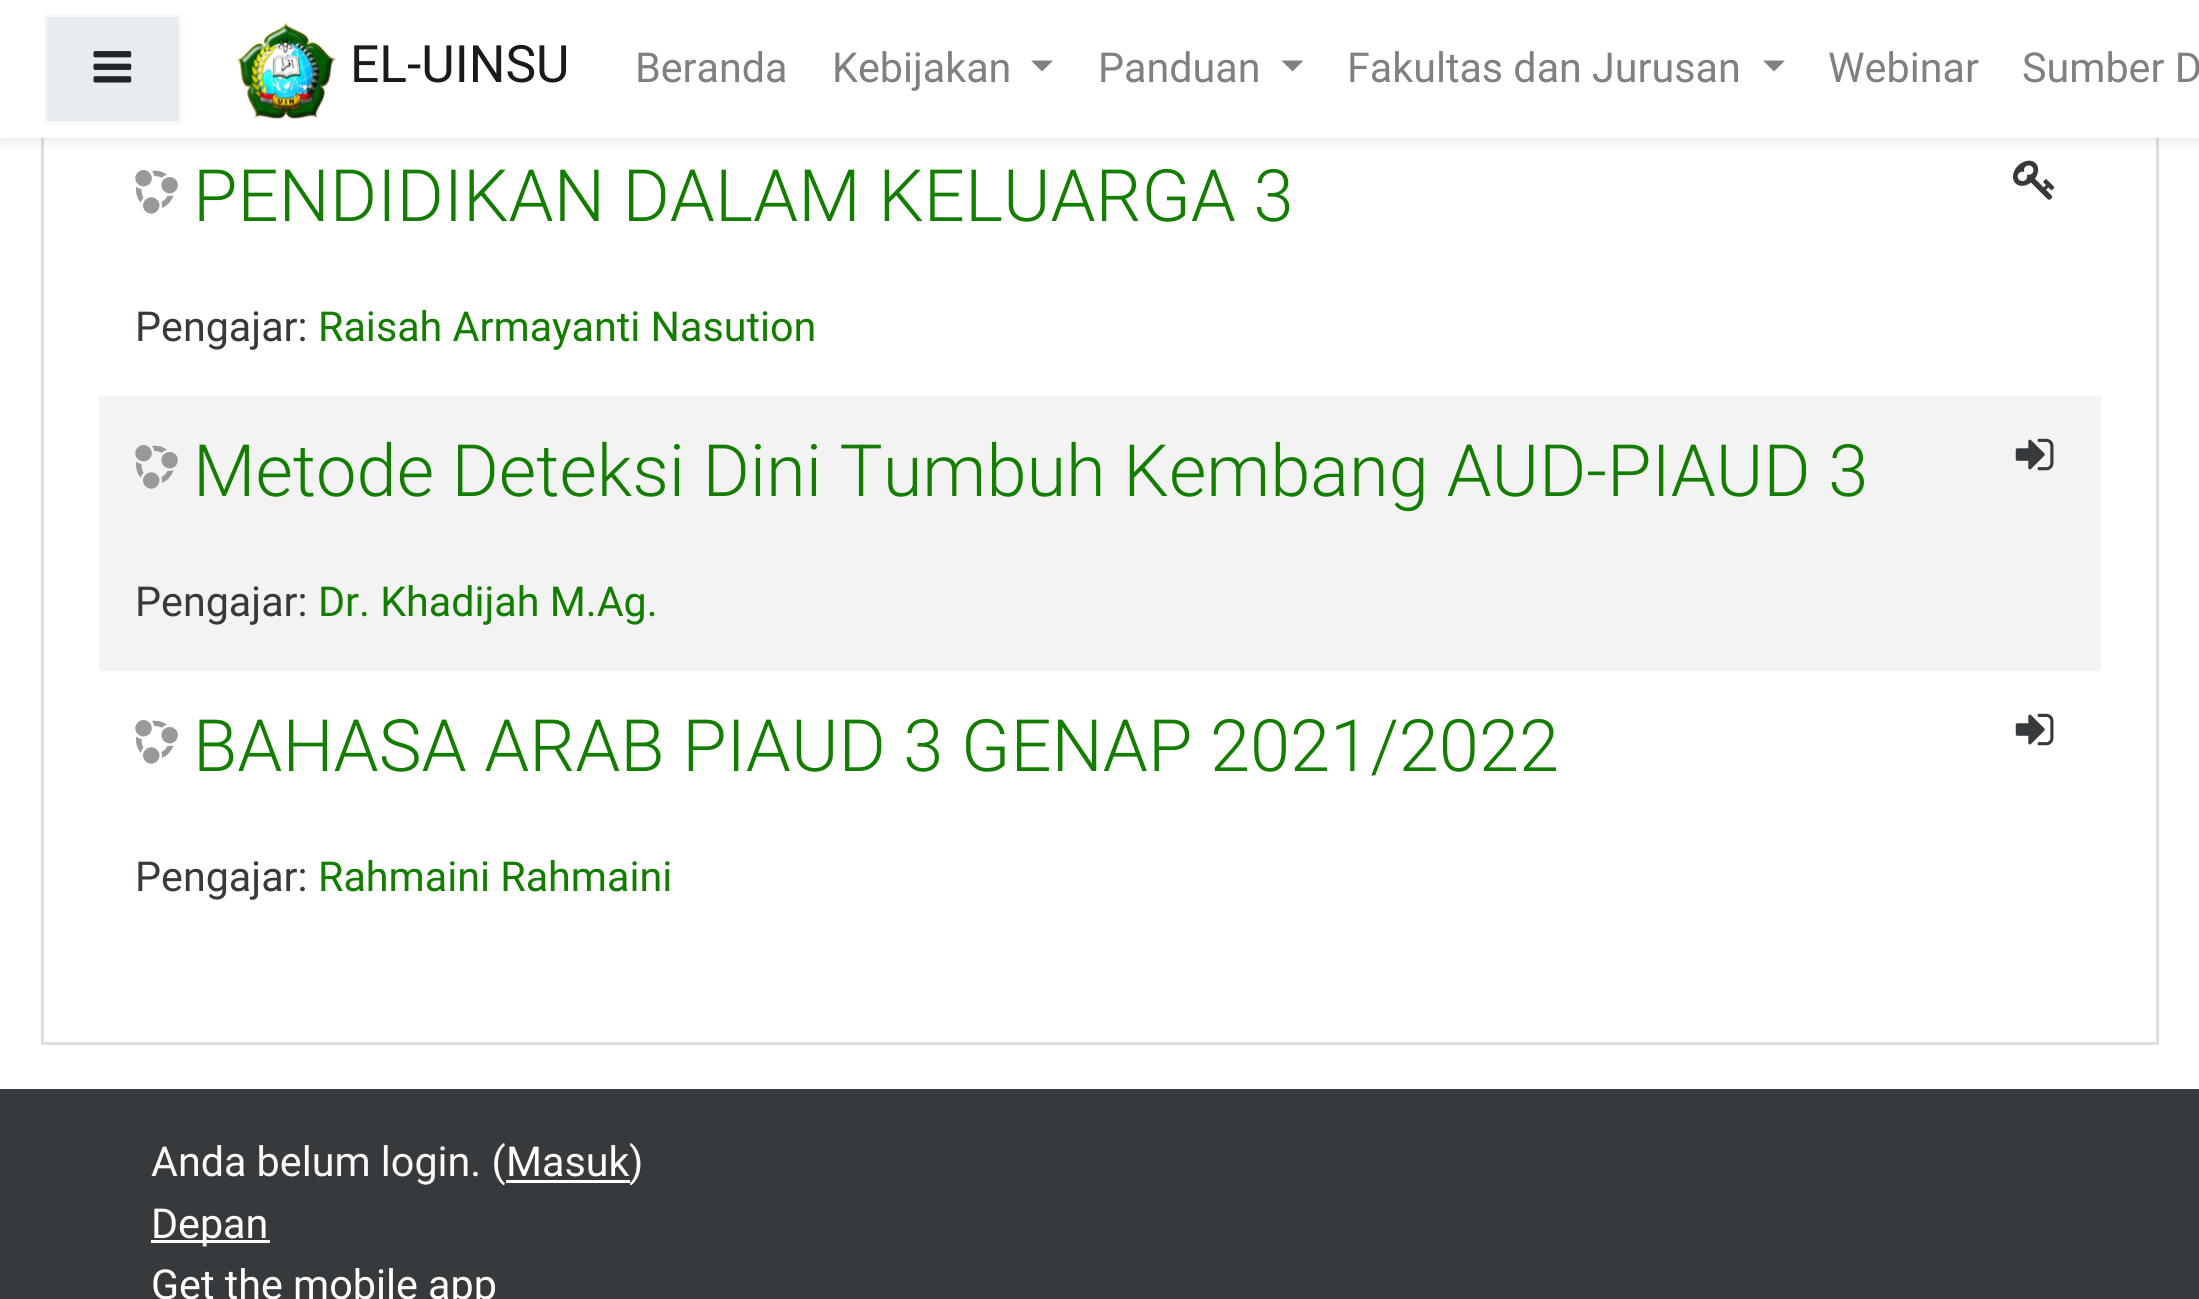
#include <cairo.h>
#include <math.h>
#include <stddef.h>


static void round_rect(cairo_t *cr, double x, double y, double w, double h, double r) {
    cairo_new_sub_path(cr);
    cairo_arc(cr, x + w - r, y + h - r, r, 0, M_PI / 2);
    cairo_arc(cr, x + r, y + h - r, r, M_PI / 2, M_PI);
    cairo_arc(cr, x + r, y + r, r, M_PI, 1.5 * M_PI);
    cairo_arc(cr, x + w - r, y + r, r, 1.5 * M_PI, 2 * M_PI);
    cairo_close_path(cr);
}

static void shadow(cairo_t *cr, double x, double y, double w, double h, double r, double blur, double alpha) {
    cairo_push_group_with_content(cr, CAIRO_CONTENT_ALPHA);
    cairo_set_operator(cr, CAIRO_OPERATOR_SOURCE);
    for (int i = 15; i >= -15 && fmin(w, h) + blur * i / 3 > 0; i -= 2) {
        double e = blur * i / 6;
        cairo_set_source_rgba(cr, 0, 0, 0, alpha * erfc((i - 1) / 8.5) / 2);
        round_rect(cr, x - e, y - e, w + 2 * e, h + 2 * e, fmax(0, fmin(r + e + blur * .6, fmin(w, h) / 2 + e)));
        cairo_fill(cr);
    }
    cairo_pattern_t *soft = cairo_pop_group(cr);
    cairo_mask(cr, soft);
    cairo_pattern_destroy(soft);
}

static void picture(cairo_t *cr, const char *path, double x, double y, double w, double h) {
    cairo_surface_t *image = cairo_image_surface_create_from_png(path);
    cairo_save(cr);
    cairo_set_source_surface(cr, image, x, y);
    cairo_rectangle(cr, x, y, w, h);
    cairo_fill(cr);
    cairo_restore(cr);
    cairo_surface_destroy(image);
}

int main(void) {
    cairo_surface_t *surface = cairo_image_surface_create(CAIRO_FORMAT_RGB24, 2199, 1299);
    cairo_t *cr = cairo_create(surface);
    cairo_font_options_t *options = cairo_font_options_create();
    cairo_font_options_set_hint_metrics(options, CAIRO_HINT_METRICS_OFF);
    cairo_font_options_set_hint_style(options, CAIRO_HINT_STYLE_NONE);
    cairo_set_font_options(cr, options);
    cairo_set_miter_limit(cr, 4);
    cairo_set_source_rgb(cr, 1, 1, 1);
    cairo_paint(cr);
    cairo_rectangle(cr, 42.5, -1.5, 2115, 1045);
    cairo_set_source_rgb(cr, 0.875, 0.875, 0.875);
    cairo_set_line_width(cr, 3);
    cairo_stroke(cr);
    picture(cr, "img4.png", 2013, 160, 42, 40);
    cairo_set_source_rgb(cr, 0, 0, 0);
    shadow(cr, 0, 6, 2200, 137, 0, 5.5, 0.08);
    cairo_set_source_rgb(cr, 1, 1, 1);
    cairo_rectangle(cr, 0, 0, 2199, 138);
    cairo_fill(cr);
    cairo_set_source_rgb(cr, 0.914, 0.925, 0.937);
    cairo_rectangle(cr, 45.5, 15.5, 135, 107);
    cairo_fill_preserve(cr);
    cairo_set_source_rgb(cr, 0.973, 0.976, 0.98);
    cairo_stroke(cr);
    picture(cr, "img1.png", 93, 51, 39, 32);
    picture(cr, "img2.png", 236, 21, 100, 98);
    cairo_select_font_face(cr, "Roboto", CAIRO_FONT_SLANT_NORMAL, CAIRO_FONT_WEIGHT_NORMAL);
    cairo_set_font_size(cr, 51.5);
    cairo_set_source_rgb(cr, 0.102, 0.102, 0.102);
    cairo_move_to(cr, 350, 82);
    cairo_show_text(cr, "EL-UINSU");
    cairo_set_font_size(cr, 41.25);
    cairo_set_source_rgb(cr, 0.502, 0.502, 0.502);
    cairo_move_to(cr, 635, 82);
    cairo_show_text(cr, "Beranda");
    cairo_move_to(cr, 832, 82);
    cairo_show_text(cr, "Kebijakan");
    cairo_new_path(cr);
    cairo_move_to(cr, 1031, 60.5);
    cairo_line_to(cr, 1053, 60.5);
    cairo_line_to(cr, 1042, 71.5);
    cairo_close_path(cr);
    cairo_fill(cr);
    cairo_move_to(cr, 1098, 82);
    cairo_show_text(cr, "Panduan");
    cairo_new_path(cr);
    cairo_move_to(cr, 1281.5, 60.5);
    cairo_line_to(cr, 1303.5, 60.5);
    cairo_line_to(cr, 1292.5, 71.5);
    cairo_close_path(cr);
    cairo_fill(cr);
    cairo_move_to(cr, 1347, 82);
    cairo_show_text(cr, "Fakultas dan Jurusan");
    cairo_new_path(cr);
    cairo_move_to(cr, 1763, 60.5);
    cairo_line_to(cr, 1785, 60.5);
    cairo_line_to(cr, 1774, 71.5);
    cairo_close_path(cr);
    cairo_fill(cr);
    cairo_move_to(cr, 1828, 82);
    cairo_show_text(cr, "Webinar");
    cairo_move_to(cr, 2022, 82);
    cairo_show_text(cr, "Sumber D");
    picture(cr, "img3.png", 135, 170, 43, 44);
    cairo_select_font_face(cr, "Roboto Light", CAIRO_FONT_SLANT_NORMAL, CAIRO_FONT_WEIGHT_NORMAL);
    cairo_set_font_size(cr, 72.2);
    cairo_set_source_rgb(cr, 0.078, 0.49, 0);
    cairo_move_to(cr, 193, 221);
    cairo_show_text(cr, "PENDIDIKAN DALAM KELUARGA 3");
    cairo_select_font_face(cr, "Roboto", CAIRO_FONT_SLANT_NORMAL, CAIRO_FONT_WEIGHT_NORMAL);
    cairo_set_font_size(cr, 41.25);
    cairo_set_source_rgb(cr, 0.216, 0.227, 0.235);
    cairo_move_to(cr, 135, 341);
    cairo_show_text(cr, "Pengajar:");
    cairo_set_source_rgb(cr, 0.078, 0.49, 0);
    cairo_move_to(cr, 318, 341);
    cairo_show_text(cr, "Raisah Armayanti Nasution");
    cairo_set_source_rgb(cr, 0.953, 0.953, 0.953);
    cairo_rectangle(cr, 99, 396, 2002, 275);
    cairo_fill(cr);
    picture(cr, "img5.png", 135, 445, 43, 44);
    cairo_select_font_face(cr, "Roboto Light", CAIRO_FONT_SLANT_NORMAL, CAIRO_FONT_WEIGHT_NORMAL);
    cairo_set_font_size(cr, 72.2);
    cairo_set_source_rgb(cr, 0.078, 0.49, 0);
    cairo_move_to(cr, 193, 496);
    cairo_show_text(cr, "Metode Deteksi Dini Tumbuh Kembang AUD-PIAUD 3");
    picture(cr, "img6.png", 2015, 438, 39, 33);
    cairo_select_font_face(cr, "Roboto", CAIRO_FONT_SLANT_NORMAL, CAIRO_FONT_WEIGHT_NORMAL);
    cairo_set_font_size(cr, 41.25);
    cairo_set_source_rgb(cr, 0.216, 0.227, 0.235);
    cairo_move_to(cr, 135, 616);
    cairo_show_text(cr, "Pengajar:");
    cairo_set_source_rgb(cr, 0.078, 0.49, 0);
    cairo_move_to(cr, 318, 616);
    cairo_show_text(cr, "Dr. Khadijah M.Ag.");
    picture(cr, "img3.png", 135, 720, 43, 44);
    cairo_select_font_face(cr, "Roboto Light", CAIRO_FONT_SLANT_NORMAL, CAIRO_FONT_WEIGHT_NORMAL);
    cairo_set_font_size(cr, 72.2);
    cairo_move_to(cr, 193, 771);
    cairo_show_text(cr, "BAHASA ARAB PIAUD 3 GENAP 2021/2022");
    picture(cr, "img7.png", 2015, 713, 39, 33);
    cairo_select_font_face(cr, "Roboto", CAIRO_FONT_SLANT_NORMAL, CAIRO_FONT_WEIGHT_NORMAL);
    cairo_set_font_size(cr, 41.25);
    cairo_set_source_rgb(cr, 0.216, 0.227, 0.235);
    cairo_move_to(cr, 135, 891);
    cairo_show_text(cr, "Pengajar:");
    cairo_set_source_rgb(cr, 0.078, 0.49, 0);
    cairo_move_to(cr, 318, 891);
    cairo_show_text(cr, "Rahmaini Rahmaini");
    cairo_set_source_rgb(cr, 0.216, 0.227, 0.235);
    cairo_rectangle(cr, 0, 1089, 2199, 210);
    cairo_fill(cr);
    cairo_set_source_rgb(cr, 0.973, 0.976, 0.98);
    cairo_move_to(cr, 151, 1176);
    cairo_show_text(cr, "Anda belum login. (");
    cairo_set_source_rgb(cr, 1, 1, 1);
    cairo_move_to(cr, 506, 1176);
    cairo_show_text(cr, "Masuk");
    cairo_rectangle(cr, 506, 1180, 124, 3);
    cairo_fill(cr);
    cairo_set_source_rgb(cr, 0.973, 0.976, 0.98);
    cairo_move_to(cr, 629, 1176);
    cairo_show_text(cr, ")");
    cairo_set_source_rgb(cr, 1, 1, 1);
    cairo_rectangle(cr, 151, 1240, 119, 3);
    cairo_fill(cr);
    cairo_move_to(cr, 151, 1238);
    cairo_show_text(cr, "Depan");
    cairo_move_to(cr, 151, 1299);
    cairo_show_text(cr, "Get the mobile app");
    cairo_surface_write_to_png(surface, "page.png");
    cairo_font_options_destroy(options);
    cairo_destroy(cr);
    cairo_surface_destroy(surface);
    return 0;
}
